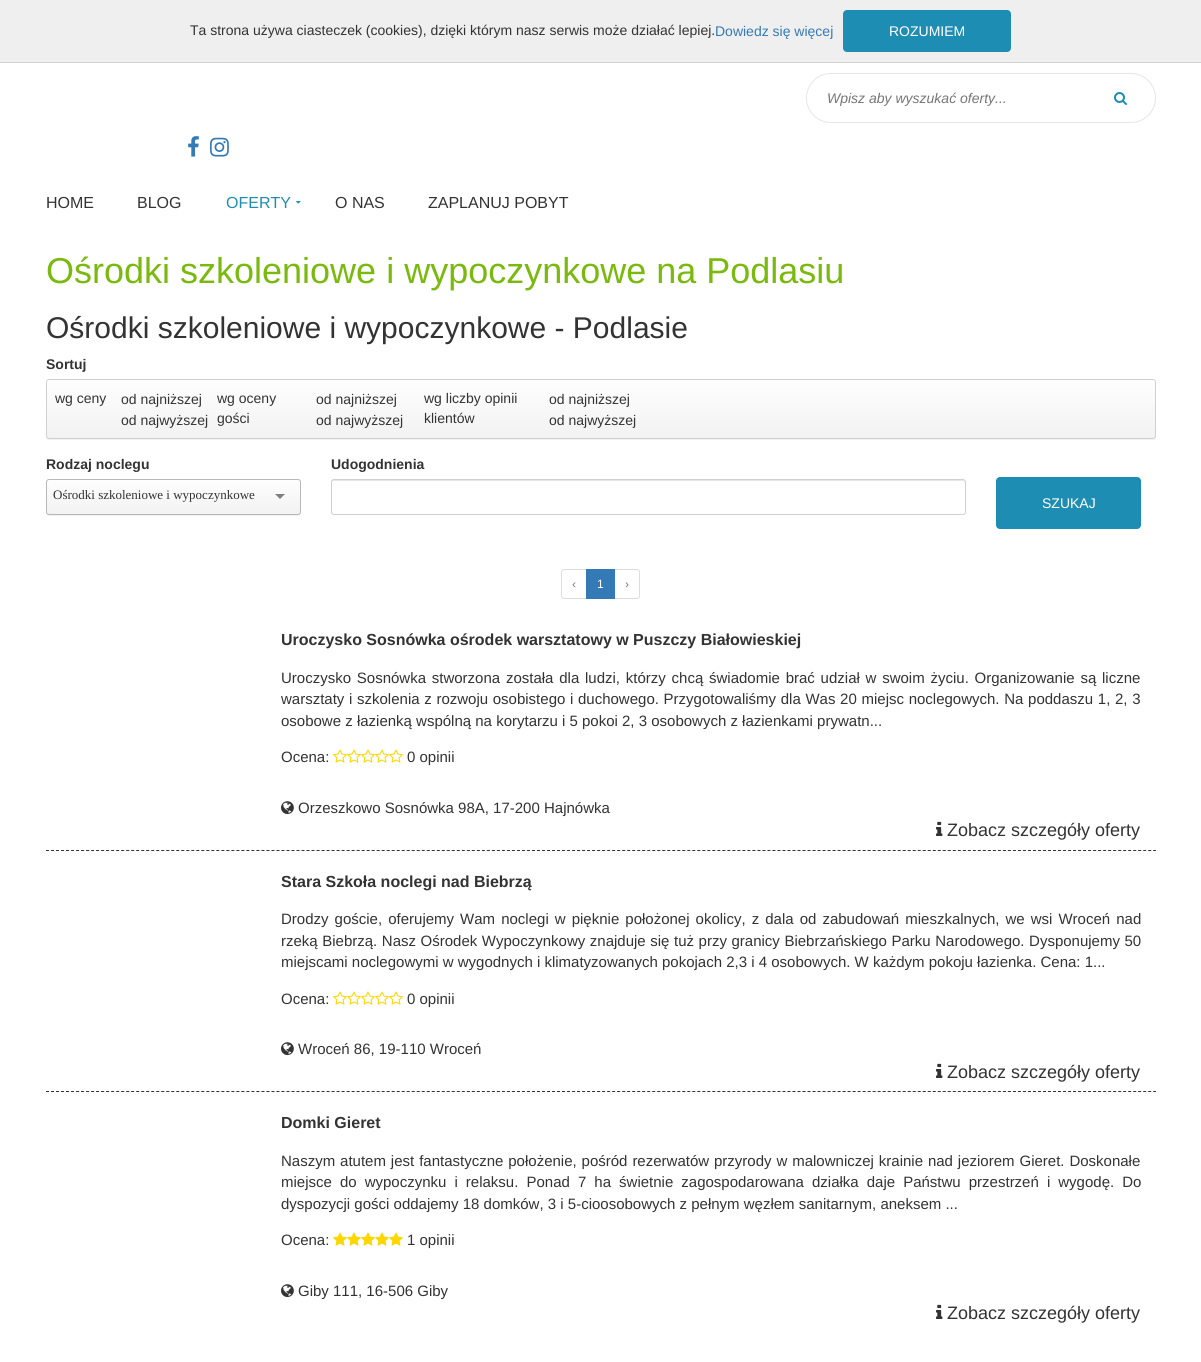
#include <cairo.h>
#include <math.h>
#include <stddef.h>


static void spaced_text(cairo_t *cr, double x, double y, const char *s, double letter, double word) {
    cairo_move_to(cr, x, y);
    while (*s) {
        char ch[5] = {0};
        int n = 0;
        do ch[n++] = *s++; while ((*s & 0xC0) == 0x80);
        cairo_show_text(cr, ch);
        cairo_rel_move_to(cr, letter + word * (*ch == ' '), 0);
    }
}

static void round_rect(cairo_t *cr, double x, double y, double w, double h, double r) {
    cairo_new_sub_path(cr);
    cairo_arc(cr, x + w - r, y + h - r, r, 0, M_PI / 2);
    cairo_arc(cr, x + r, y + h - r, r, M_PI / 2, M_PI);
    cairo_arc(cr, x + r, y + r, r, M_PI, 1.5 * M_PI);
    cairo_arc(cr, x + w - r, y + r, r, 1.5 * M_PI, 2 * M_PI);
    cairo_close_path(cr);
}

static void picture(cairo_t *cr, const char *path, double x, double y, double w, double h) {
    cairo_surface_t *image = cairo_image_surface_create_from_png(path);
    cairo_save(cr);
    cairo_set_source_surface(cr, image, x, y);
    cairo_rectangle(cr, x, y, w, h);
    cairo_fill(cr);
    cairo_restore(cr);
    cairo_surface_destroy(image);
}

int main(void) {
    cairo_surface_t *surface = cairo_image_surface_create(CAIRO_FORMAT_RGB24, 1201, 1362);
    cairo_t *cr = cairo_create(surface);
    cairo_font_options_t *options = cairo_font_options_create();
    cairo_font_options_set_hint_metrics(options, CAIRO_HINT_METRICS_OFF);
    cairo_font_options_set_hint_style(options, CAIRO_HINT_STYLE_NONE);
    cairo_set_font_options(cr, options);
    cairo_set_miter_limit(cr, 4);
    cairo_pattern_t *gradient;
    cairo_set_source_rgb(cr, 1, 1, 1);
    cairo_paint(cr);
    cairo_set_source_rgb(cr, 0.937, 0.937, 0.937);
    cairo_rectangle(cr, 0, 0, 1201, 62);
    cairo_fill(cr);
    cairo_set_source_rgb(cr, 0.827, 0.816, 0.816);
    cairo_rectangle(cr, 0, 62, 1201, 1);
    cairo_fill(cr);
    cairo_select_font_face(cr, "Liberation Sans", CAIRO_FONT_SLANT_NORMAL, CAIRO_FONT_WEIGHT_NORMAL);
    cairo_set_font_size(cr, 14);
    cairo_set_source_rgb(cr, 0.2, 0.2, 0.2);
    cairo_move_to(cr, 190, 35);
    cairo_show_text(cr, "Ta strona używa ciasteczek (cookies), dzięki którym nasz serwis może działać lepiej.");
    cairo_set_source_rgb(cr, 0.2, 0.478, 0.718);
    cairo_move_to(cr, 715, 36);
    cairo_show_text(cr, "Dowiedz się więcej");
    cairo_set_source_rgb(cr, 0.118, 0.553, 0.706);
    round_rect(cr, 843, 10, 168, 42, 4);
    cairo_fill(cr);
    cairo_set_source_rgb(cr, 1, 1, 1);
    cairo_move_to(cr, 889, 36);
    cairo_show_text(cr, "ROZUMIEM");
    round_rect(cr, 806.5, 73.5, 349, 49, 24.5);
    cairo_set_source_rgb(cr, 0.902, 0.902, 0.902);
    cairo_set_line_width(cr, 1);
    cairo_stroke(cr);
    cairo_select_font_face(cr, "Liberation Sans", CAIRO_FONT_SLANT_ITALIC, CAIRO_FONT_WEIGHT_NORMAL);
    cairo_set_source_rgb(cr, 0.459, 0.459, 0.459);
    cairo_move_to(cr, 827, 103);
    cairo_show_text(cr, "Wpisz aby wyszukać oferty...");
    picture(cr, "img1.png", 1114, 92, 13, 13);
    picture(cr, "img2.png", 188, 136, 11, 21);
    picture(cr, "img3.png", 210, 137, 19, 20);
    cairo_select_font_face(cr, "Liberation Sans", CAIRO_FONT_SLANT_NORMAL, CAIRO_FONT_WEIGHT_NORMAL);
    cairo_set_font_size(cr, 16);
    cairo_set_source_rgb(cr, 0.2, 0.2, 0.2);
    cairo_move_to(cr, 46, 208);
    cairo_show_text(cr, "HOME");
    cairo_move_to(cr, 137, 208);
    cairo_show_text(cr, "BLOG");
    cairo_set_source_rgb(cr, 0.118, 0.553, 0.706);
    cairo_move_to(cr, 226, 208);
    cairo_show_text(cr, "OFERTY");
    picture(cr, "img4.png", 296, 201, 5, 3);
    cairo_set_source_rgb(cr, 0.2, 0.2, 0.2);
    cairo_move_to(cr, 335, 208);
    cairo_show_text(cr, "O NAS");
    cairo_move_to(cr, 428, 208);
    cairo_show_text(cr, "ZAPLANUJ POBYT");
    cairo_set_font_size(cr, 36);
    cairo_set_source_rgb(cr, 0.478, 0.725, 0.055);
    cairo_move_to(cr, 46, 283);
    cairo_show_text(cr, "Ośrodki szkoleniowe i wypoczynkowe na Podlasiu");
    cairo_set_font_size(cr, 30);
    cairo_set_source_rgb(cr, 0.2, 0.2, 0.2);
    cairo_move_to(cr, 46, 338);
    cairo_show_text(cr, "Ośrodki szkoleniowe i wypoczynkowe - Podlasie");
    cairo_select_font_face(cr, "Liberation Sans", CAIRO_FONT_SLANT_NORMAL, CAIRO_FONT_WEIGHT_BOLD);
    cairo_set_font_size(cr, 14);
    cairo_move_to(cr, 46, 369);
    cairo_show_text(cr, "Sortuj");
    cairo_set_source_rgb(cr, 0.949, 0.949, 0.949);
    cairo_new_path(cr);
    cairo_move_to(cr, 46, 436);
    cairo_line_to(cr, 46, 437);
    cairo_curve_to(cr, 46, 439, 47, 440, 49, 440);
    cairo_line_to(cr, 1153, 440);
    cairo_curve_to(cr, 1155, 440, 1156, 439, 1156, 437);
    cairo_line_to(cr, 1156, 436);
    cairo_curve_to(cr, 1156, 438, 1155, 439, 1153, 439);
    cairo_line_to(cr, 49, 439);
    cairo_curve_to(cr, 47, 439, 46, 438, 46, 436);
    cairo_close_path(cr);
    cairo_fill(cr);
    cairo_save(cr);
    round_rect(cr, 46, 379, 1110, 60, 3);
    cairo_clip(cr);
    gradient = cairo_pattern_create_linear(601, 380, 601, 438);
    cairo_pattern_add_color_stop_rgba(gradient, 0, 0.996, 0.996, 0.996, 1);
    cairo_pattern_add_color_stop_rgba(gradient, 1, 0.949, 0.949, 0.949, 1);
    cairo_set_source(cr, gradient);
    cairo_pattern_destroy(gradient);
    cairo_rectangle(cr, 46, 380, 1110, 58);
    cairo_fill(cr);
    cairo_restore(cr);
    round_rect(cr, 46.5, 379.5, 1109, 59, 2.5);
    cairo_set_source_rgb(cr, 0.816, 0.816, 0.816);
    cairo_stroke(cr);
    cairo_select_font_face(cr, "Liberation Sans", CAIRO_FONT_SLANT_NORMAL, CAIRO_FONT_WEIGHT_NORMAL);
    cairo_set_source_rgb(cr, 0.2, 0.2, 0.2);
    cairo_move_to(cr, 55, 403);
    cairo_show_text(cr, "wg ceny");
    cairo_move_to(cr, 121, 404);
    cairo_show_text(cr, "od najniższej");
    cairo_move_to(cr, 121, 425);
    cairo_show_text(cr, "od najwyższej");
    cairo_move_to(cr, 217, 403);
    cairo_show_text(cr, "wg oceny");
    cairo_move_to(cr, 217, 423);
    cairo_show_text(cr, "gości");
    cairo_move_to(cr, 316, 404);
    cairo_show_text(cr, "od najniższej");
    cairo_move_to(cr, 316, 425);
    cairo_show_text(cr, "od najwyższej");
    cairo_move_to(cr, 424, 403);
    cairo_show_text(cr, "wg liczby opinii");
    cairo_move_to(cr, 424, 423);
    cairo_show_text(cr, "klientów");
    cairo_move_to(cr, 549, 404);
    cairo_show_text(cr, "od najniższej");
    cairo_move_to(cr, 549, 425);
    cairo_show_text(cr, "od najwyższej");
    cairo_select_font_face(cr, "Liberation Sans", CAIRO_FONT_SLANT_NORMAL, CAIRO_FONT_WEIGHT_BOLD);
    cairo_move_to(cr, 46, 469);
    cairo_show_text(cr, "Rodzaj noclegu");
    cairo_set_source_rgb(cr, 0.949, 0.949, 0.949);
    cairo_new_path(cr);
    cairo_move_to(cr, 46, 512);
    cairo_curve_to(cr, 46, 514, 47, 516, 49, 516);
    cairo_line_to(cr, 298, 516);
    cairo_curve_to(cr, 300, 516, 301, 514, 301, 512);
    cairo_curve_to(cr, 301, 514, 300, 515, 298, 515);
    cairo_line_to(cr, 49, 515);
    cairo_curve_to(cr, 47, 515, 46, 514, 46, 512);
    cairo_close_path(cr);
    cairo_fill(cr);
    cairo_save(cr);
    round_rect(cr, 46, 479, 255, 36, 3);
    cairo_clip(cr);
    gradient = cairo_pattern_create_linear(174, 480, 174, 514);
    cairo_pattern_add_color_stop_rgba(gradient, 0, 0.996, 0.996, 0.996, 1);
    cairo_pattern_add_color_stop_rgba(gradient, 1, 0.949, 0.949, 0.949, 1);
    cairo_set_source(cr, gradient);
    cairo_pattern_destroy(gradient);
    cairo_rectangle(cr, 46, 480, 255, 34);
    cairo_fill(cr);
    cairo_restore(cr);
    round_rect(cr, 46.5, 479.5, 254, 35, 2.5);
    cairo_set_source_rgb(cr, 0.722, 0.722, 0.722);
    cairo_stroke(cr);
    cairo_select_font_face(cr, "Liberation Serif", CAIRO_FONT_SLANT_NORMAL, CAIRO_FONT_WEIGHT_NORMAL);
    cairo_set_font_size(cr, 13);
    cairo_set_source_rgb(cr, 0.2, 0.2, 0.2);
    cairo_move_to(cr, 53, 499);
    cairo_show_text(cr, "Ośrodki szkoleniowe i wypoczynkowe");
    cairo_set_source_rgb(cr, 0.502, 0.502, 0.502);
    cairo_new_path(cr);
    cairo_move_to(cr, 275, 494);
    cairo_line_to(cr, 285, 494);
    cairo_line_to(cr, 280, 499);
    cairo_close_path(cr);
    cairo_fill(cr);
    cairo_select_font_face(cr, "Liberation Sans", CAIRO_FONT_SLANT_NORMAL, CAIRO_FONT_WEIGHT_BOLD);
    cairo_set_font_size(cr, 14);
    cairo_set_source_rgb(cr, 0.2, 0.2, 0.2);
    cairo_move_to(cr, 331, 469);
    cairo_show_text(cr, "Udogodnienia");
    cairo_set_source_rgb(cr, 0.902, 0.902, 0.902);
    cairo_new_path(cr);
    cairo_move_to(cr, 334, 481);
    cairo_line_to(cr, 963, 481);
    cairo_curve_to(cr, 964, 481, 965, 482, 965, 483);
    cairo_curve_to(cr, 965, 482, 965, 480, 963, 480);
    cairo_line_to(cr, 334, 480);
    cairo_curve_to(cr, 332, 480, 332, 482, 332, 483);
    cairo_curve_to(cr, 332, 482, 333, 481, 334, 481);
    cairo_close_path(cr);
    cairo_fill(cr);
    round_rect(cr, 331.5, 479.5, 634, 35, 2.5);
    cairo_set_source_rgb(cr, 0.816, 0.816, 0.816);
    cairo_stroke(cr);
    cairo_set_source_rgb(cr, 0.118, 0.553, 0.706);
    round_rect(cr, 996, 477, 145, 52, 4);
    cairo_fill(cr);
    cairo_select_font_face(cr, "Liberation Sans", CAIRO_FONT_SLANT_NORMAL, CAIRO_FONT_WEIGHT_NORMAL);
    cairo_set_source_rgb(cr, 1, 1, 1);
    cairo_move_to(cr, 1042, 508);
    cairo_show_text(cr, "SZUKAJ");
    cairo_new_path(cr);
    cairo_move_to(cr, 564, 569.5);
    cairo_line_to(cr, 586.5, 569.5);
    cairo_line_to(cr, 586.5, 598.5);
    cairo_line_to(cr, 564, 598.5);
    cairo_curve_to(cr, 562.5, 598.5, 561.5, 597.5, 561.5, 596);
    cairo_line_to(cr, 561.5, 572);
    cairo_curve_to(cr, 561.5, 570.5, 562.5, 569.5, 564, 569.5);
    cairo_close_path(cr);
    cairo_set_source_rgb(cr, 0.867, 0.867, 0.867);
    cairo_stroke(cr);
    cairo_set_font_size(cr, 12);
    cairo_set_source_rgb(cr, 0.459, 0.459, 0.459);
    cairo_move_to(cr, 572, 588);
    cairo_show_text(cr, "‹");
    cairo_new_path(cr);
    cairo_move_to(cr, 614.5, 569.5);
    cairo_line_to(cr, 637, 569.5);
    cairo_curve_to(cr, 638.5, 569.5, 639.5, 570.5, 639.5, 572);
    cairo_line_to(cr, 639.5, 596);
    cairo_curve_to(cr, 639.5, 597.5, 638.5, 598.5, 637, 598.5);
    cairo_line_to(cr, 614.5, 598.5);
    cairo_close_path(cr);
    cairo_set_source_rgb(cr, 0.867, 0.867, 0.867);
    cairo_stroke(cr);
    cairo_set_source_rgb(cr, 0.2, 0.478, 0.718);
    cairo_rectangle(cr, 586, 569, 29, 30);
    cairo_fill(cr);
    cairo_set_source_rgb(cr, 1, 1, 1);
    cairo_move_to(cr, 597, 588);
    cairo_show_text(cr, "1");
    cairo_set_source_rgb(cr, 0.459, 0.459, 0.459);
    cairo_move_to(cr, 625, 588);
    cairo_show_text(cr, "›");
    cairo_new_path(cr);
    cairo_move_to(cr, 46, 850.5);
    cairo_line_to(cr, 1156, 850.5);
    cairo_set_source_rgb(cr, 0.2, 0.2, 0.2);
    cairo_set_dash(cr, (double[]){3, 2.01}, 2, 0);
    cairo_stroke(cr);
    cairo_select_font_face(cr, "Liberation Sans", CAIRO_FONT_SLANT_NORMAL, CAIRO_FONT_WEIGHT_BOLD);
    cairo_set_font_size(cr, 16);
    cairo_move_to(cr, 281, 645);
    cairo_show_text(cr, "Uroczysko Sosnówka ośrodek warsztatowy w Puszczy Białowieskiej");
    cairo_select_font_face(cr, "Liberation Sans", CAIRO_FONT_SLANT_NORMAL, CAIRO_FONT_WEIGHT_NORMAL);
    cairo_set_font_size(cr, 15);
    spaced_text(cr, 281, 683, "Uroczysko Sosnówka stworzona została dla ludzi, którzy chcą świadomie brać udział w swoim życiu. Organizowanie są liczne", 0, 1.6);
    spaced_text(cr, 281, 704, "warsztaty i szkolenia z rozwoju osobistego i duchowego. Przygotowaliśmy dla Was 20 miejsc noclegowych. Na poddaszu 1, 2, 3", 0, 0.5);
    cairo_move_to(cr, 281, 726);
    cairo_show_text(cr, "osobowe z łazienką wspólną na korytarzu i 5 pokoi 2, 3 osobowych z łazienkami prywatn...");
    cairo_move_to(cr, 281, 762);
    cairo_show_text(cr, "Ocena:");
    picture(cr, "img5.png", 333, 749, 14, 14);
    picture(cr, "img5.png", 347, 749, 14, 14);
    picture(cr, "img5.png", 361, 749, 14, 14);
    picture(cr, "img5.png", 375, 749, 14, 14);
    picture(cr, "img5.png", 389, 749, 14, 14);
    cairo_move_to(cr, 407, 762);
    cairo_show_text(cr, "0 opinii");
    picture(cr, "img6.png", 281, 801, 13, 14);
    cairo_move_to(cr, 298, 813);
    cairo_show_text(cr, "Orzeszkowo Sosnówka 98A, 17-200 Hajnówka");
    picture(cr, "img7.png", 936, 821, 7, 15);
    cairo_set_font_size(cr, 18);
    cairo_move_to(cr, 947, 836);
    cairo_show_text(cr, "Zobacz szczegóły oferty");
    cairo_new_path(cr);
    cairo_move_to(cr, 46, 1091.5);
    cairo_line_to(cr, 1156, 1091.5);
    cairo_stroke(cr);
    cairo_select_font_face(cr, "Liberation Sans", CAIRO_FONT_SLANT_NORMAL, CAIRO_FONT_WEIGHT_BOLD);
    cairo_set_font_size(cr, 16);
    cairo_move_to(cr, 281, 887);
    cairo_show_text(cr, "Stara Szkoła noclegi nad Biebrzą");
    cairo_select_font_face(cr, "Liberation Sans", CAIRO_FONT_SLANT_NORMAL, CAIRO_FONT_WEIGHT_NORMAL);
    cairo_set_font_size(cr, 15);
    spaced_text(cr, 281, 924, "Drodzy goście, oferujemy Wam noclegi w pięknie położonej okolicy, z dala od zabudowań mieszkalnych, we wsi Wroceń nad", 0, 1.9);
    spaced_text(cr, 281, 946, "rzeką Biebrzą. Nasz Ośrodek Wypoczynkowy znajduje się tuż przy granicy Biebrzańskiego Parku Narodowego. Dysponujemy 50", 0, 0.4);
    cairo_move_to(cr, 281, 967);
    cairo_show_text(cr, "miejscami noclegowymi w wygodnych i klimatyzowanych pokojach 2,3 i 4 osobowych. W każdym pokoju łazienka. Cena: 1...");
    cairo_move_to(cr, 281, 1004);
    cairo_show_text(cr, "Ocena:");
    picture(cr, "img5.png", 333, 991, 14, 14);
    picture(cr, "img5.png", 347, 991, 14, 14);
    picture(cr, "img5.png", 361, 991, 14, 14);
    picture(cr, "img5.png", 375, 991, 14, 14);
    picture(cr, "img5.png", 389, 991, 14, 14);
    cairo_move_to(cr, 407, 1004);
    cairo_show_text(cr, "0 opinii");
    picture(cr, "img6.png", 281, 1042, 13, 14);
    cairo_move_to(cr, 298, 1054);
    cairo_show_text(cr, "Wroceń 86, 19-110 Wroceń");
    picture(cr, "img7.png", 936, 1063, 7, 15);
    cairo_set_font_size(cr, 18);
    cairo_move_to(cr, 947, 1078);
    cairo_show_text(cr, "Zobacz szczegóły oferty");
    cairo_select_font_face(cr, "Liberation Sans", CAIRO_FONT_SLANT_NORMAL, CAIRO_FONT_WEIGHT_BOLD);
    cairo_set_font_size(cr, 16);
    cairo_move_to(cr, 281, 1128);
    cairo_show_text(cr, "Domki Gieret");
    cairo_select_font_face(cr, "Liberation Sans", CAIRO_FONT_SLANT_NORMAL, CAIRO_FONT_WEIGHT_NORMAL);
    cairo_set_font_size(cr, 15);
    spaced_text(cr, 281, 1166, "Naszym atutem jest fantastyczne położenie, pośród rezerwatów przyrody w malowniczej krainie nad jeziorem Gieret. Doskonałe", 0, 0.75);
    spaced_text(cr, 281, 1187, "miejsce do wypoczynku i relaksu. Ponad 7 ha świetnie zagospodarowana działka daje Państwu przestrzeń i wygodę. Do", 0, 3.9);
    cairo_move_to(cr, 281, 1209);
    cairo_show_text(cr, "dyspozycji gości oddajemy 18 domków, 3 i 5-cioosobowych z pełnym węzłem sanitarnym, aneksem ...");
    cairo_move_to(cr, 281, 1245);
    cairo_show_text(cr, "Ocena:");
    picture(cr, "img8.png", 333, 1232, 14, 14);
    picture(cr, "img8.png", 347, 1232, 14, 14);
    picture(cr, "img8.png", 361, 1232, 14, 14);
    picture(cr, "img8.png", 375, 1232, 14, 14);
    picture(cr, "img8.png", 389, 1232, 14, 14);
    cairo_move_to(cr, 407, 1245);
    cairo_show_text(cr, "1 opinii");
    picture(cr, "img6.png", 281, 1284, 13, 14);
    cairo_move_to(cr, 298, 1296);
    cairo_show_text(cr, "Giby 111, 16-506 Giby");
    picture(cr, "img7.png", 936, 1304, 7, 15);
    cairo_set_font_size(cr, 18);
    cairo_move_to(cr, 947, 1319);
    cairo_show_text(cr, "Zobacz szczegóły oferty");
    cairo_surface_write_to_png(surface, "page.png");
    cairo_font_options_destroy(options);
    cairo_destroy(cr);
    cairo_surface_destroy(surface);
    return 0;
}
